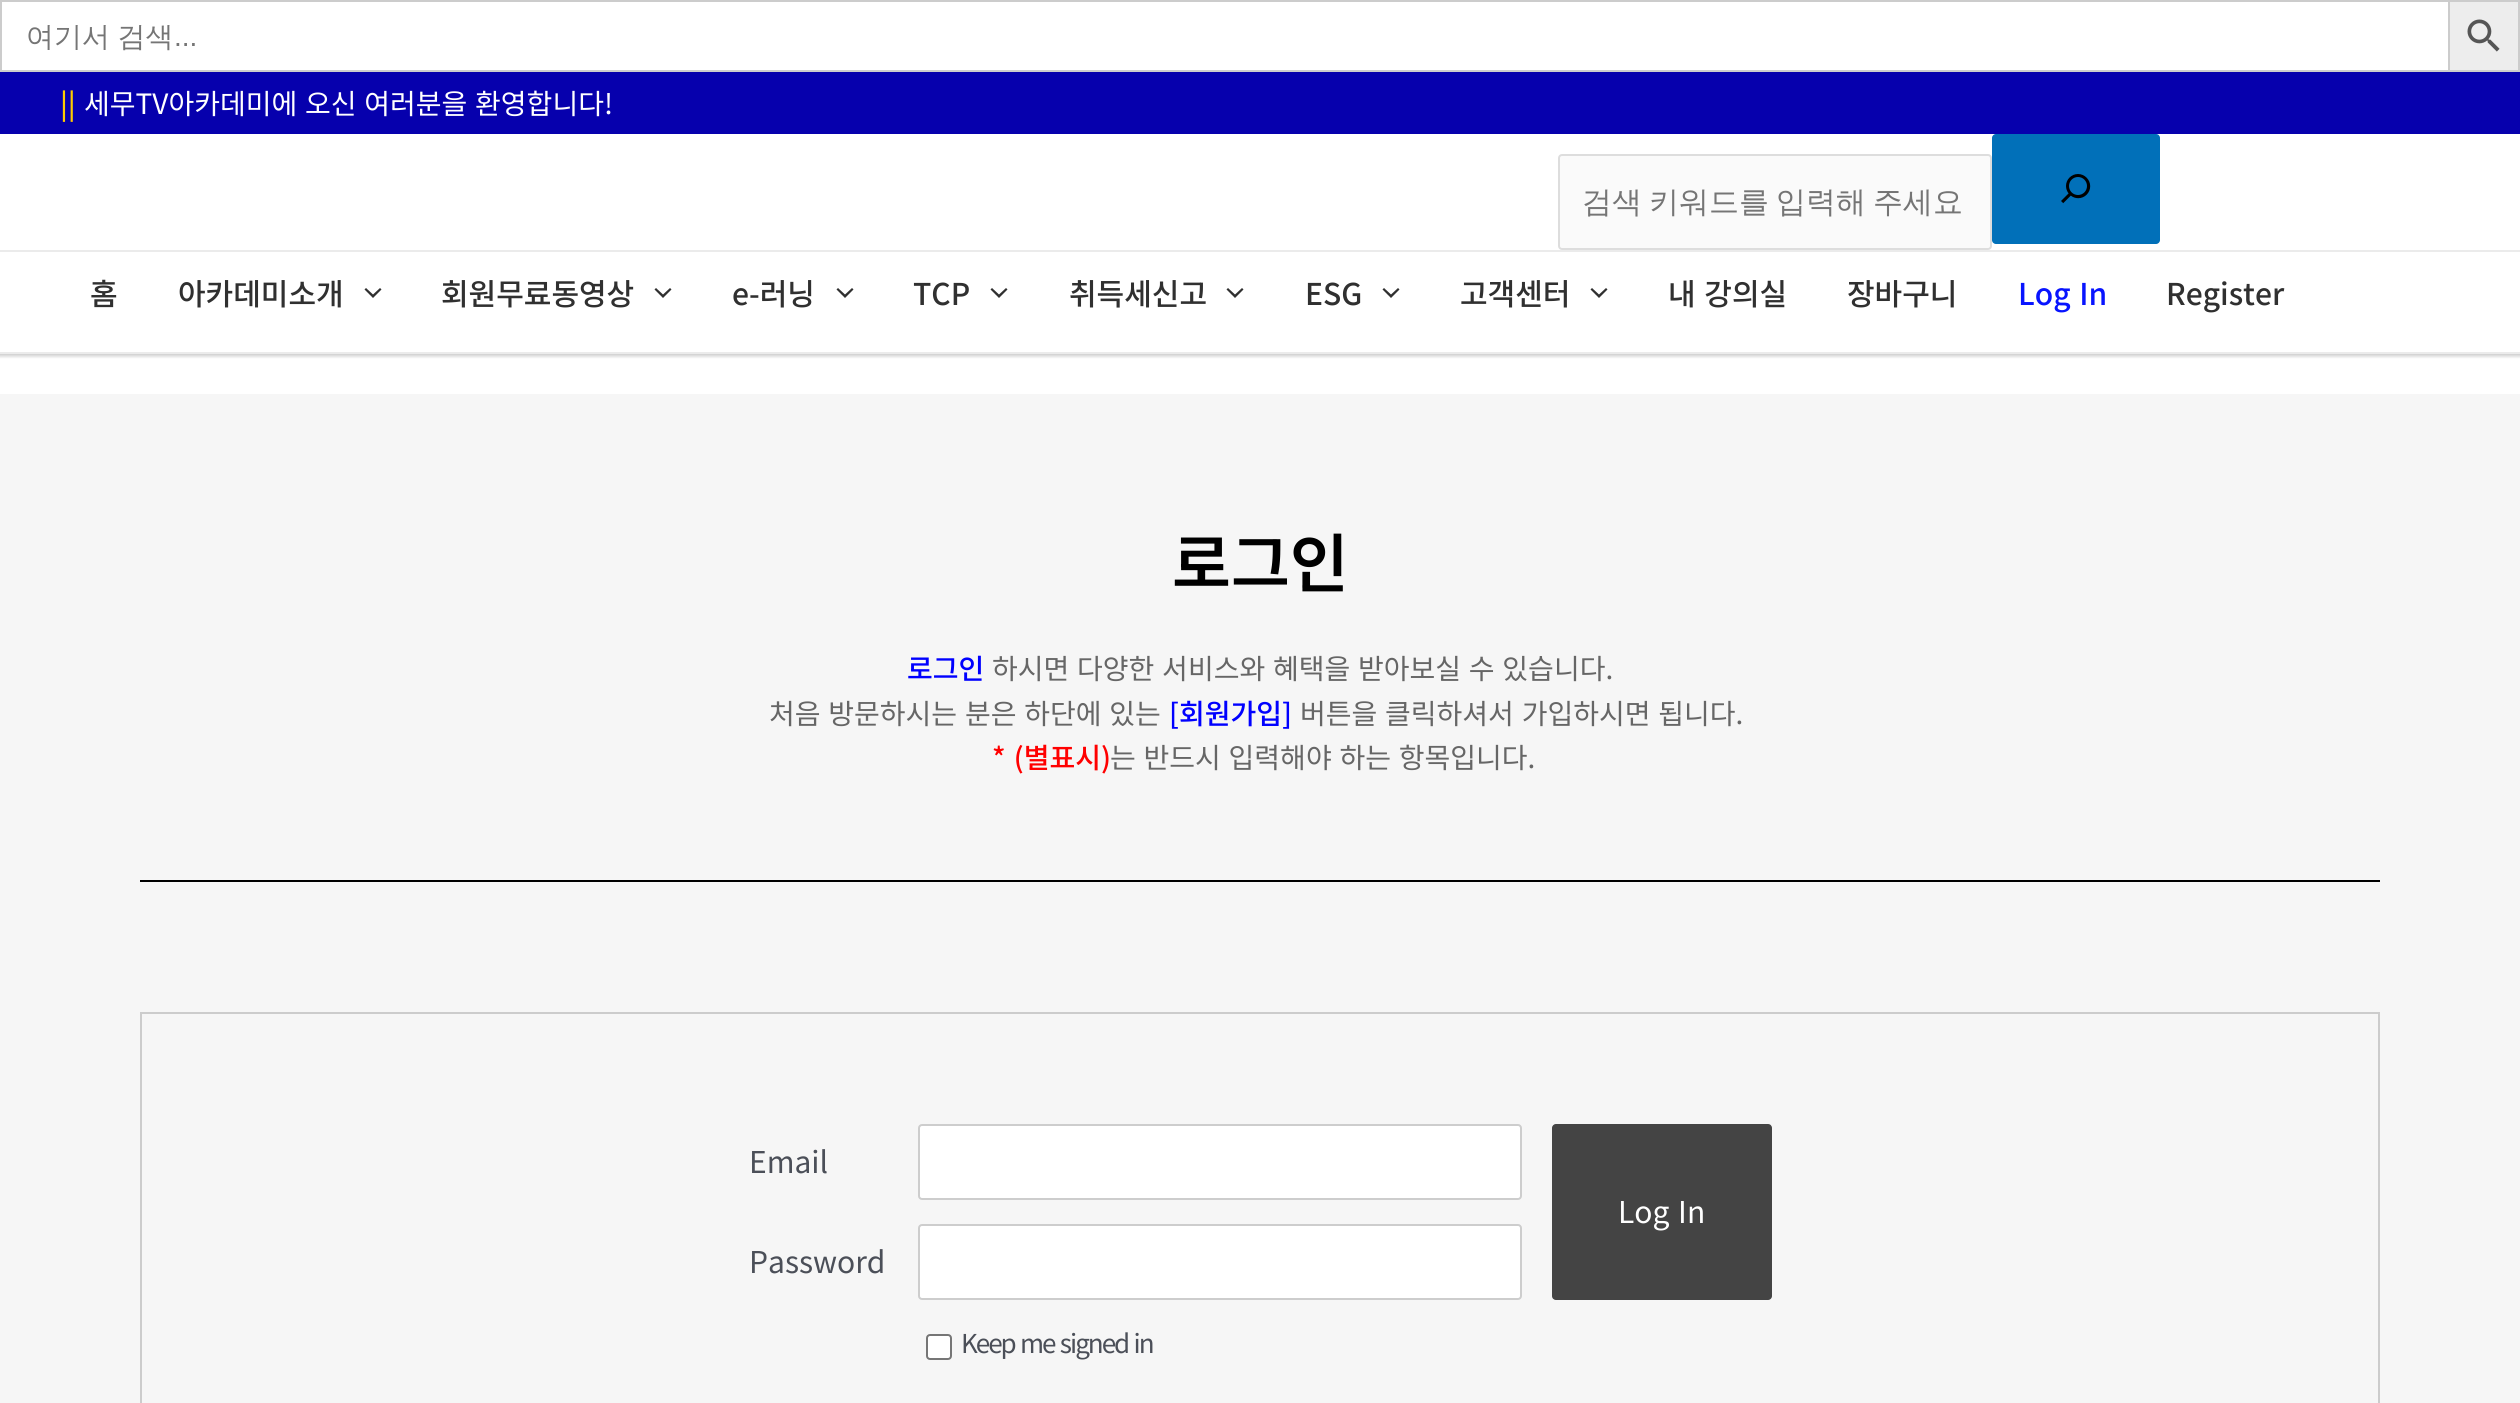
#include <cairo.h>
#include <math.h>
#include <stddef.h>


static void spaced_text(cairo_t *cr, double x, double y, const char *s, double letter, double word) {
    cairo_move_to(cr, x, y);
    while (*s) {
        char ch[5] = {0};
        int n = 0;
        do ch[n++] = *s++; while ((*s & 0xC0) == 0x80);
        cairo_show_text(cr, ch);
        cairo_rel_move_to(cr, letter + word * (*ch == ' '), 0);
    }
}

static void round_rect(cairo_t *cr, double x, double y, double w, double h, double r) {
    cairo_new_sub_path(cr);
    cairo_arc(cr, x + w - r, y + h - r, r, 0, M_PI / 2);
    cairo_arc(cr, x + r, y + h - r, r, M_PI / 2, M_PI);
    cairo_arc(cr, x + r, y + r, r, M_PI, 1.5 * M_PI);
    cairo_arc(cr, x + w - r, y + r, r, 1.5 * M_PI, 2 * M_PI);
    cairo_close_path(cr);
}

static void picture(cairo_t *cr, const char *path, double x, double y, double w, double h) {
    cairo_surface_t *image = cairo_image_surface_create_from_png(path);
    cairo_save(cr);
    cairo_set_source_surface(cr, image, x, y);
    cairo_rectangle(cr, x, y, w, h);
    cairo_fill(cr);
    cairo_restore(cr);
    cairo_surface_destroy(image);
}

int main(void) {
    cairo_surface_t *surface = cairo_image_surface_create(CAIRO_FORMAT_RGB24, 2520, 1403);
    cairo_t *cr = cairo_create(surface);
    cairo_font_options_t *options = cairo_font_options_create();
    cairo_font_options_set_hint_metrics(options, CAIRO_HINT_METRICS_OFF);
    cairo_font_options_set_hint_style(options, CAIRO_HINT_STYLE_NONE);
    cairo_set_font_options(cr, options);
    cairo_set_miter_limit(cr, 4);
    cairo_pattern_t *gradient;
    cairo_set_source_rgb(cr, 0.961, 0.961, 0.961);
    cairo_paint(cr);
    cairo_set_source_rgb(cr, 1, 1, 1);
    cairo_rectangle(cr, 2, 2, 2446, 68);
    cairo_fill(cr);
    cairo_set_source_rgb(cr, 0.8, 0.8, 0.8);
    cairo_rectangle(cr, 0, 0, 2448, 2);
    cairo_fill(cr);
    cairo_rectangle(cr, 0, 70, 2448, 2);
    cairo_fill(cr);
    cairo_rectangle(cr, 0, 0, 2, 72);
    cairo_fill(cr);
    cairo_select_font_face(cr, "WenQuanYi Zen Hei Medium", CAIRO_FONT_SLANT_NORMAL, CAIRO_FONT_WEIGHT_NORMAL);
    cairo_set_font_size(cr, 28);
    cairo_set_source_rgb(cr, 0.459, 0.459, 0.459);
    spaced_text(cr, 26, 46, "여기서 검색", 0, -1);
    cairo_select_font_face(cr, "Liberation Sans", CAIRO_FONT_SLANT_NORMAL, CAIRO_FONT_WEIGHT_NORMAL);
    cairo_move_to(cr, 174, 46);
    cairo_show_text(cr, "...");
    cairo_set_source_rgb(cr, 0.929, 0.929, 0.929);
    cairo_rectangle(cr, 2449, 1, 70, 70);
    cairo_fill_preserve(cr);
    cairo_set_source_rgb(cr, 0.8, 0.8, 0.8);
    cairo_stroke(cr);
    picture(cr, "img1.png", 2467, 19, 33, 33);
    cairo_set_source_rgb(cr, 0.024, 0, 0.678);
    cairo_rectangle(cr, 0, 72, 2520, 62);
    cairo_fill(cr);
    cairo_select_font_face(cr, "Noto Sans KR Medium", CAIRO_FONT_SLANT_NORMAL, CAIRO_FONT_WEIGHT_NORMAL);
    cairo_set_source_rgb(cr, 1, 0.8, 0);
    cairo_move_to(cr, 60, 114);
    cairo_show_text(cr, "||");
    cairo_select_font_face(cr, "Noto Sans KR", CAIRO_FONT_SLANT_NORMAL, CAIRO_FONT_WEIGHT_NORMAL);
    cairo_set_source_rgb(cr, 1, 1, 1);
    spaced_text(cr, 84, 114, "세무TV아카데미에 오신 여러분을 환영합니다!", 0, 1.5);
    cairo_rectangle(cr, 0, 134, 2520, 116);
    cairo_fill(cr);
    cairo_set_source_rgb(cr, 0.918, 0.918, 0.918);
    cairo_rectangle(cr, 0, 250, 2520, 2);
    cairo_fill(cr);
    cairo_set_source_rgb(cr, 0.98, 0.98, 0.98);
    round_rect(cr, 1559, 155, 432, 94, 3);
    cairo_fill_preserve(cr);
    cairo_set_source_rgb(cr, 0.867, 0.867, 0.867);
    cairo_stroke(cr);
    cairo_select_font_face(cr, "WenQuanYi Zen Hei Medium", CAIRO_FONT_SLANT_NORMAL, CAIRO_FONT_WEIGHT_NORMAL);
    cairo_set_font_size(cr, 30);
    cairo_set_source_rgb(cr, 0.459, 0.459, 0.459);
    spaced_text(cr, 1582, 212, "검색 키워드를 입력해 주세요", 0, -2);
    cairo_set_source_rgb(cr, 0.004, 0.439, 0.725);
    round_rect(cr, 1992, 134, 168, 110, 4);
    cairo_fill(cr);
    picture(cr, "img2.png", 2061, 174, 30, 30);
    cairo_set_source_rgb(cr, 1, 1, 1);
    cairo_rectangle(cr, 0, 252, 2520, 100);
    cairo_fill(cr);
    cairo_set_source_rgb(cr, 0.918, 0.918, 0.918);
    cairo_rectangle(cr, 0, 352, 2520, 2);
    cairo_fill(cr);
    cairo_select_font_face(cr, "Noto Sans KR Medium", CAIRO_FONT_SLANT_NORMAL, CAIRO_FONT_WEIGHT_NORMAL);
    cairo_set_source_rgb(cr, 0.188, 0.188, 0.188);
    cairo_move_to(cr, 90, 305);
    cairo_show_text(cr, "홈");
    cairo_move_to(cr, 178, 305);
    cairo_show_text(cr, "아카데미소개");
    cairo_new_path(cr);
    cairo_move_to(cr, 364.5, 289.5);
    cairo_line_to(cr, 373, 298);
    cairo_line_to(cr, 381.5, 289.5);
    cairo_line_to(cr, 380, 288);
    cairo_line_to(cr, 373, 294.5);
    cairo_line_to(cr, 366, 288);
    cairo_close_path(cr);
    cairo_fill(cr);
    cairo_move_to(cr, 441, 305);
    cairo_show_text(cr, "회원무료동영상");
    cairo_new_path(cr);
    cairo_move_to(cr, 654.5, 289.5);
    cairo_line_to(cr, 663, 298);
    cairo_line_to(cr, 671.5, 289.5);
    cairo_line_to(cr, 670, 288);
    cairo_line_to(cr, 663, 294.5);
    cairo_line_to(cr, 656, 288);
    cairo_close_path(cr);
    cairo_fill(cr);
    cairo_move_to(cr, 732, 305);
    cairo_show_text(cr, "e-러닝");
    cairo_new_path(cr);
    cairo_move_to(cr, 836.5, 289.5);
    cairo_line_to(cr, 845, 298);
    cairo_line_to(cr, 853.5, 289.5);
    cairo_line_to(cr, 852, 288);
    cairo_line_to(cr, 845, 294.5);
    cairo_line_to(cr, 838, 288);
    cairo_close_path(cr);
    cairo_fill(cr);
    cairo_move_to(cr, 913, 305);
    cairo_show_text(cr, "TCP");
    cairo_new_path(cr);
    cairo_move_to(cr, 990.5, 289.5);
    cairo_line_to(cr, 999, 298);
    cairo_line_to(cr, 1007.5, 289.5);
    cairo_line_to(cr, 1006, 288);
    cairo_line_to(cr, 999, 294.5);
    cairo_line_to(cr, 992, 288);
    cairo_close_path(cr);
    cairo_fill(cr);
    cairo_move_to(cr, 1069, 305);
    cairo_show_text(cr, "취득세신고");
    cairo_new_path(cr);
    cairo_move_to(cr, 1226.5, 289.5);
    cairo_line_to(cr, 1235, 298);
    cairo_line_to(cr, 1243.5, 289.5);
    cairo_line_to(cr, 1242, 288);
    cairo_line_to(cr, 1235, 294.5);
    cairo_line_to(cr, 1228, 288);
    cairo_close_path(cr);
    cairo_fill(cr);
    cairo_move_to(cr, 1305, 305);
    cairo_show_text(cr, "ESG");
    cairo_new_path(cr);
    cairo_move_to(cr, 1382.5, 289.5);
    cairo_line_to(cr, 1391, 298);
    cairo_line_to(cr, 1399.5, 289.5);
    cairo_line_to(cr, 1398, 288);
    cairo_line_to(cr, 1391, 294.5);
    cairo_line_to(cr, 1384, 288);
    cairo_close_path(cr);
    cairo_fill(cr);
    cairo_move_to(cr, 1460, 305);
    cairo_show_text(cr, "고객센터");
    cairo_new_path(cr);
    cairo_move_to(cr, 1590.5, 289.5);
    cairo_line_to(cr, 1599, 298);
    cairo_line_to(cr, 1607.5, 289.5);
    cairo_line_to(cr, 1606, 288);
    cairo_line_to(cr, 1599, 294.5);
    cairo_line_to(cr, 1592, 288);
    cairo_close_path(cr);
    cairo_fill(cr);
    spaced_text(cr, 1668, 305, "내 강의실", 0, 2);
    cairo_move_to(cr, 1847, 305);
    cairo_show_text(cr, "장바구니");
    cairo_set_source_rgb(cr, 0.035, 0.082, 1);
    spaced_text(cr, 2018, 305, "Log In", 0, 2);
    cairo_set_source_rgb(cr, 0.188, 0.188, 0.188);
    cairo_move_to(cr, 2166, 305);
    cairo_show_text(cr, "Register");
    gradient = cairo_pattern_create_linear(1260, 354, 1260, 394);
    cairo_pattern_add_color_stop_rgba(gradient, 0, 0.812, 0.812, 0.812, 1);
    cairo_pattern_add_color_stop_rgba(gradient, 0.12, 1, 1, 1, 1);
    cairo_set_source(cr, gradient);
    cairo_pattern_destroy(gradient);
    cairo_rectangle(cr, 0, 354, 2520, 40);
    cairo_fill(cr);
    cairo_select_font_face(cr, "Noto Sans KR SemiBold", CAIRO_FONT_SLANT_NORMAL, CAIRO_FONT_WEIGHT_NORMAL);
    cairo_set_font_size(cr, 64);
    cairo_set_source_rgb(cr, 0, 0, 0);
    cairo_move_to(cr, 1172, 587);
    cairo_show_text(cr, "로그인");
    cairo_select_font_face(cr, "Noto Sans KR Medium", CAIRO_FONT_SLANT_NORMAL, CAIRO_FONT_WEIGHT_NORMAL);
    cairo_set_font_size(cr, 28);
    cairo_set_source_rgb(cr, 0, 0, 1);
    cairo_move_to(cr, 907, 679);
    cairo_show_text(cr, "로그인");
    cairo_select_font_face(cr, "Noto Sans KR", CAIRO_FONT_SLANT_NORMAL, CAIRO_FONT_WEIGHT_NORMAL);
    cairo_set_source_rgb(cr, 0.4, 0.4, 0.4);
    spaced_text(cr, 992, 679, "하시면 다양한 서비스와 혜택을 받아보실 수 있습니다.", 0, 1.5);
    spaced_text(cr, 769, 724, "처음 방문하시는 분은 하단에 있는", 0, 1.5);
    cairo_select_font_face(cr, "Noto Sans KR Medium", CAIRO_FONT_SLANT_NORMAL, CAIRO_FONT_WEIGHT_NORMAL);
    cairo_set_source_rgb(cr, 0, 0, 1);
    cairo_move_to(cr, 1169, 724);
    cairo_show_text(cr, "[회원가입]");
    cairo_select_font_face(cr, "Noto Sans KR", CAIRO_FONT_SLANT_NORMAL, CAIRO_FONT_WEIGHT_NORMAL);
    cairo_set_source_rgb(cr, 0.4, 0.4, 0.4);
    spaced_text(cr, 1300, 724, "버튼을 클릭하셔서 가입하시면 됩니다.", 0, 1.5);
    cairo_select_font_face(cr, "Noto Sans KR Medium", CAIRO_FONT_SLANT_NORMAL, CAIRO_FONT_WEIGHT_NORMAL);
    cairo_set_source_rgb(cr, 1, 0, 0);
    spaced_text(cr, 992, 768, "* (별표시)", 0, 2);
    cairo_select_font_face(cr, "Noto Sans KR", CAIRO_FONT_SLANT_NORMAL, CAIRO_FONT_WEIGHT_NORMAL);
    cairo_set_source_rgb(cr, 0.4, 0.4, 0.4);
    spaced_text(cr, 1110, 768, "는 반드시 입력해야 하는 항목입니다.", 0, 1.5);
    cairo_set_source_rgb(cr, 0, 0, 0);
    cairo_rectangle(cr, 140, 880, 2240, 2);
    cairo_fill(cr);
    cairo_set_source_rgb(cr, 0.8, 0.8, 0.8);
    cairo_rectangle(cr, 140, 1012, 2240, 2);
    cairo_fill(cr);
    cairo_rectangle(cr, 2378, 1012, 2, 391);
    cairo_fill(cr);
    cairo_rectangle(cr, 140, 1012, 2, 391);
    cairo_fill(cr);
    cairo_set_font_size(cr, 30);
    cairo_set_source_rgb(cr, 0.294, 0.31, 0.345);
    cairo_move_to(cr, 749, 1173);
    cairo_show_text(cr, "Email");
    cairo_set_source_rgb(cr, 1, 1, 1);
    round_rect(cr, 919, 1125, 602, 74, 3);
    cairo_fill_preserve(cr);
    cairo_set_source_rgb(cr, 0.804, 0.804, 0.804);
    cairo_stroke(cr);
    cairo_set_source_rgb(cr, 0.294, 0.31, 0.345);
    cairo_move_to(cr, 749, 1273);
    cairo_show_text(cr, "Password");
    cairo_set_source_rgb(cr, 1, 1, 1);
    round_rect(cr, 919, 1225, 602, 74, 3);
    cairo_fill_preserve(cr);
    cairo_set_source_rgb(cr, 0.804, 0.804, 0.804);
    cairo_stroke(cr);
    cairo_set_source_rgb(cr, 1, 1, 1);
    round_rect(cr, 927, 1335, 24, 24, 3);
    cairo_fill_preserve(cr);
    cairo_set_source_rgb(cr, 0.463, 0.463, 0.463);
    cairo_stroke(cr);
    cairo_set_font_size(cr, 26);
    cairo_set_source_rgb(cr, 0.294, 0.31, 0.345);
    spaced_text(cr, 961, 1353, "Keep me signed in", -2, 1.5);
    cairo_set_source_rgb(cr, 0.267, 0.267, 0.267);
    round_rect(cr, 1552, 1124, 220, 176, 4);
    cairo_fill(cr);
    cairo_set_font_size(cr, 30);
    cairo_set_source_rgb(cr, 1, 1, 1);
    spaced_text(cr, 1618, 1223, "Log In", 0, 2);
    cairo_surface_write_to_png(surface, "page.png");
    cairo_font_options_destroy(options);
    cairo_destroy(cr);
    cairo_surface_destroy(surface);
    return 0;
}
